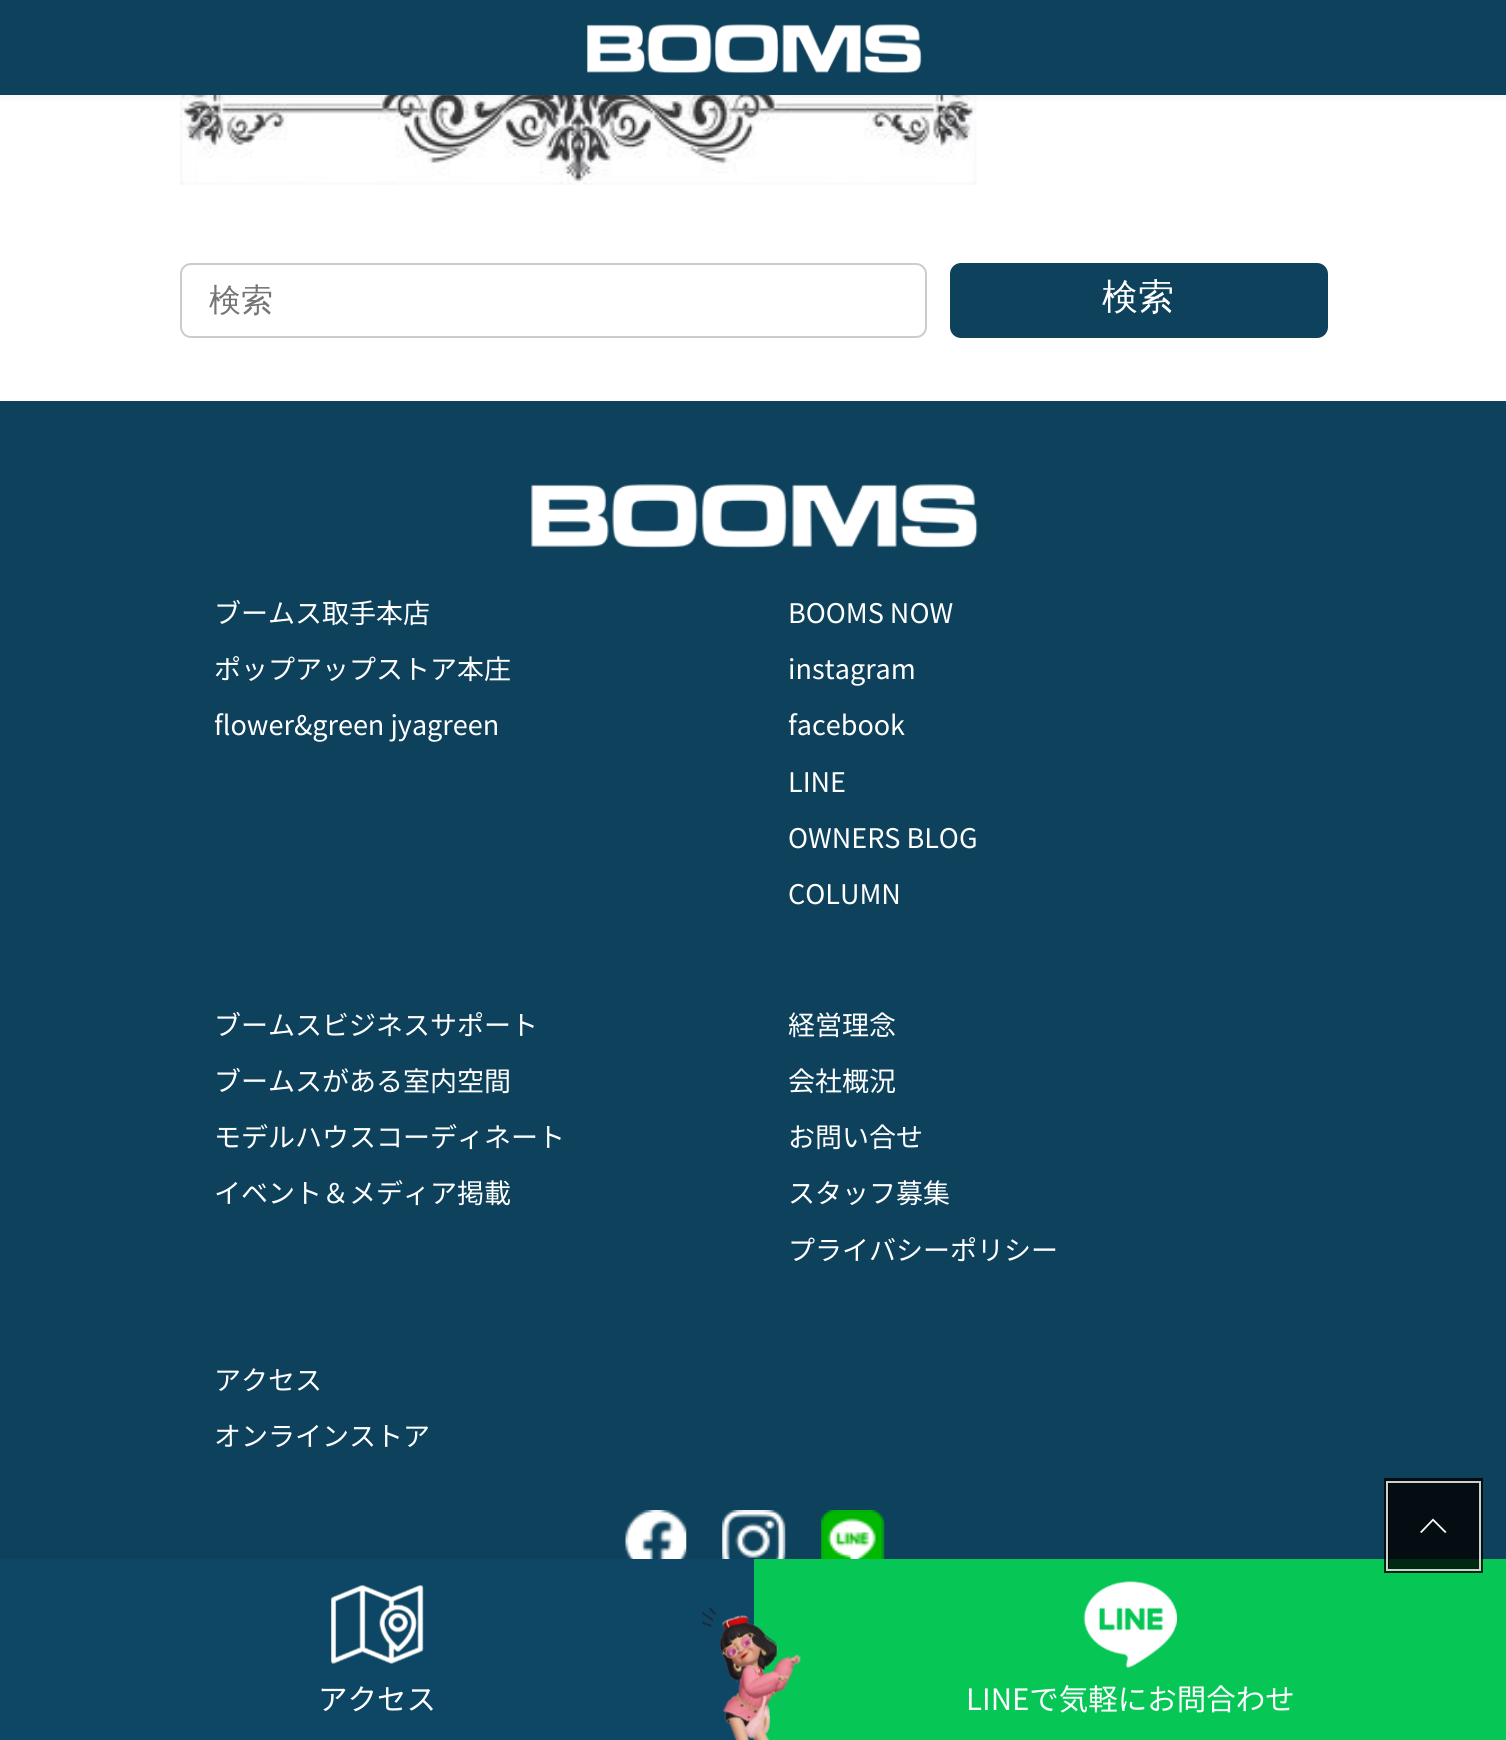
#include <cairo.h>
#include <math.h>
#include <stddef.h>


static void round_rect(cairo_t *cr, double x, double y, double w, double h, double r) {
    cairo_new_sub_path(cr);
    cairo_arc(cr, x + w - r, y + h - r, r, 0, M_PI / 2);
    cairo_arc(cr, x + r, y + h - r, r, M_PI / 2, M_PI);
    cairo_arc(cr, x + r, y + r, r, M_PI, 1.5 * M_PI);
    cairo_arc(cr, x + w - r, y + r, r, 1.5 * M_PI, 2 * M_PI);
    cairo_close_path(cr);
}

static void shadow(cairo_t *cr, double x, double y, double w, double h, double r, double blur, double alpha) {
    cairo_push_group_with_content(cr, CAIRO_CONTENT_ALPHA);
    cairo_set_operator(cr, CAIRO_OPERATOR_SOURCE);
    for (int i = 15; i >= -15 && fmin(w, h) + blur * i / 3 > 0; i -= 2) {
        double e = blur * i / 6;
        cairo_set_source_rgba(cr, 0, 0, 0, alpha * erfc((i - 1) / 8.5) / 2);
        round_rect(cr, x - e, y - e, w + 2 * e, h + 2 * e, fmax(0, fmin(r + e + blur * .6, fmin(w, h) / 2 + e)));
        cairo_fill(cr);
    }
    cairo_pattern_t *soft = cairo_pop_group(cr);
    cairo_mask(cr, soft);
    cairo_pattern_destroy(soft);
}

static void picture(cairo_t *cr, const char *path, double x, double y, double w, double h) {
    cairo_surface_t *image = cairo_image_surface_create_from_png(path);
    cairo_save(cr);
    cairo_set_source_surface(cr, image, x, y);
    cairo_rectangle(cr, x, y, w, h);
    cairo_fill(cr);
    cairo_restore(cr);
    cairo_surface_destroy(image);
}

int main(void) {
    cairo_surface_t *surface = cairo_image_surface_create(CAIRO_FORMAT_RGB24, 1506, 1740);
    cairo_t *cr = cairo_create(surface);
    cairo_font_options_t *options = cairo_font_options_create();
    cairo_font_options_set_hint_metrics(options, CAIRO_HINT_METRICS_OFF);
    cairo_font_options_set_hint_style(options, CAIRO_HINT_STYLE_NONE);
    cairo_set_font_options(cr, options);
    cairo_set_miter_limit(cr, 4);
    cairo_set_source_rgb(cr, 1, 1, 1);
    cairo_paint(cr);
    picture(cr, "img2.png", 180, 95, 797, 90);
    cairo_set_source_rgb(cr, 0, 0, 0);
    shadow(cr, 0, 2, 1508, 95, 0, 3.5, 0.05);
    cairo_set_source_rgb(cr, 0.051, 0.255, 0.361);
    cairo_rectangle(cr, 0, 0, 1506, 95);
    cairo_fill(cr);
    picture(cr, "img1.png", 587, 24, 335, 50);
    round_rect(cr, 181, 264, 745, 73, 10);
    cairo_set_source_rgb(cr, 0.8, 0.8, 0.8);
    cairo_stroke(cr);
    cairo_select_font_face(cr, "WenQuanYi Zen Hei Medium", CAIRO_FONT_SLANT_NORMAL, CAIRO_FONT_WEIGHT_NORMAL);
    cairo_set_font_size(cr, 32);
    cairo_set_source_rgb(cr, 0.459, 0.459, 0.459);
    cairo_move_to(cr, 209, 311);
    cairo_show_text(cr, "検索");
    cairo_set_source_rgb(cr, 0.051, 0.255, 0.361);
    round_rect(cr, 950, 263, 378, 75, 11);
    cairo_fill(cr);
    cairo_set_font_size(cr, 36);
    cairo_set_source_rgb(cr, 1, 1, 1);
    cairo_move_to(cr, 1102, 309);
    cairo_show_text(cr, "検索");
    cairo_set_source_rgb(cr, 0.051, 0.255, 0.361);
    cairo_rectangle(cr, 0, 401, 1506, 1158);
    cairo_fill(cr);
    picture(cr, "img3.png", 531, 484, 447, 64);
    cairo_select_font_face(cr, "Noto Sans JP", CAIRO_FONT_SLANT_NORMAL, CAIRO_FONT_WEIGHT_NORMAL);
    cairo_set_font_size(cr, 27);
    cairo_set_source_rgb(cr, 1, 1, 1);
    cairo_move_to(cr, 214, 623);
    cairo_show_text(cr, "ブームス取手本店");
    cairo_move_to(cr, 214, 679);
    cairo_show_text(cr, "ポップアップストア本庄");
    cairo_move_to(cr, 214, 735);
    cairo_show_text(cr, "flower&green jyagreen");
    cairo_move_to(cr, 788, 623);
    cairo_show_text(cr, "BOOMS NOW");
    cairo_move_to(cr, 788, 679);
    cairo_show_text(cr, "instagram");
    cairo_move_to(cr, 788, 735);
    cairo_show_text(cr, "facebook");
    cairo_move_to(cr, 788, 792);
    cairo_show_text(cr, "LINE");
    cairo_move_to(cr, 788, 848);
    cairo_show_text(cr, "OWNERS BLOG");
    cairo_move_to(cr, 788, 904);
    cairo_show_text(cr, "COLUMN");
    cairo_move_to(cr, 214, 1035);
    cairo_show_text(cr, "ブームスビジネスサポート");
    cairo_move_to(cr, 214, 1091);
    cairo_show_text(cr, "ブームスがある室内空間");
    cairo_move_to(cr, 214, 1147);
    cairo_show_text(cr, "モデルハウスコーディネート");
    cairo_move_to(cr, 214, 1203);
    cairo_show_text(cr, "イベント＆メディア掲載");
    cairo_move_to(cr, 788, 1035);
    cairo_show_text(cr, "経営理念");
    cairo_move_to(cr, 788, 1091);
    cairo_show_text(cr, "会社概況");
    cairo_move_to(cr, 788, 1147);
    cairo_show_text(cr, "お問い合せ");
    cairo_move_to(cr, 788, 1203);
    cairo_show_text(cr, "スタッフ募集");
    cairo_move_to(cr, 788, 1260);
    cairo_show_text(cr, "プライバシーポリシー");
    cairo_move_to(cr, 214, 1390);
    cairo_show_text(cr, "アクセス");
    cairo_move_to(cr, 214, 1446);
    cairo_show_text(cr, "オンラインストア");
    picture(cr, "img4.png", 625, 1510, 62, 49);
    picture(cr, "img5.png", 722, 1510, 64, 49);
    picture(cr, "img6.png", 821, 1510, 64, 49);
    cairo_set_source_rgb(cr, 0.024, 0.78, 0.333);
    cairo_rectangle(cr, 754, 1559, 752, 181);
    cairo_fill(cr);
    cairo_rectangle(cr, 1386.5, 1480.5, 94, 90);
    cairo_set_source_rgba(cr, 0, 0, 0, 0.8);
    cairo_set_line_width(cr, 5);
    cairo_stroke(cr);
    cairo_rectangle(cr, 1387, 1482, 93, 88);
    cairo_set_source_rgba(cr, 1, 1, 1, 0.8);
    cairo_set_line_width(cr, 2);
    cairo_stroke(cr);
    cairo_set_source_rgba(cr, 0, 0, 0, 0.8);
    cairo_rectangle(cr, 1388, 1483, 90, 85);
    cairo_fill(cr);
    cairo_set_source_rgb(cr, 1, 1, 1);
    cairo_new_path(cr);
    cairo_move_to(cr, 1446.5, 1532);
    cairo_line_to(cr, 1445, 1533);
    cairo_line_to(cr, 1433, 1521);
    cairo_line_to(cr, 1421.5, 1533);
    cairo_line_to(cr, 1420, 1532);
    cairo_line_to(cr, 1433, 1518.5);
    cairo_close_path(cr);
    cairo_fill(cr);
    cairo_set_source_rgb(cr, 0.055, 0.278, 0.396);
    cairo_rectangle(cr, 0, 1559, 754, 181);
    cairo_fill(cr);
    picture(cr, "img7.png", 701, 1607, 100, 133);
    picture(cr, "img8.png", 331, 1585, 93, 79);
    cairo_set_font_size(cr, 29.5);
    cairo_set_source_rgb(cr, 1, 1, 1);
    cairo_move_to(cr, 318, 1710);
    cairo_show_text(cr, "アクセス");
    picture(cr, "img9.png", 1083, 1581, 94, 87);
    cairo_move_to(cr, 966, 1710);
    cairo_show_text(cr, "LINEで気軽にお問合わせ");
    cairo_surface_write_to_png(surface, "page.png");
    cairo_font_options_destroy(options);
    cairo_destroy(cr);
    cairo_surface_destroy(surface);
    return 0;
}
